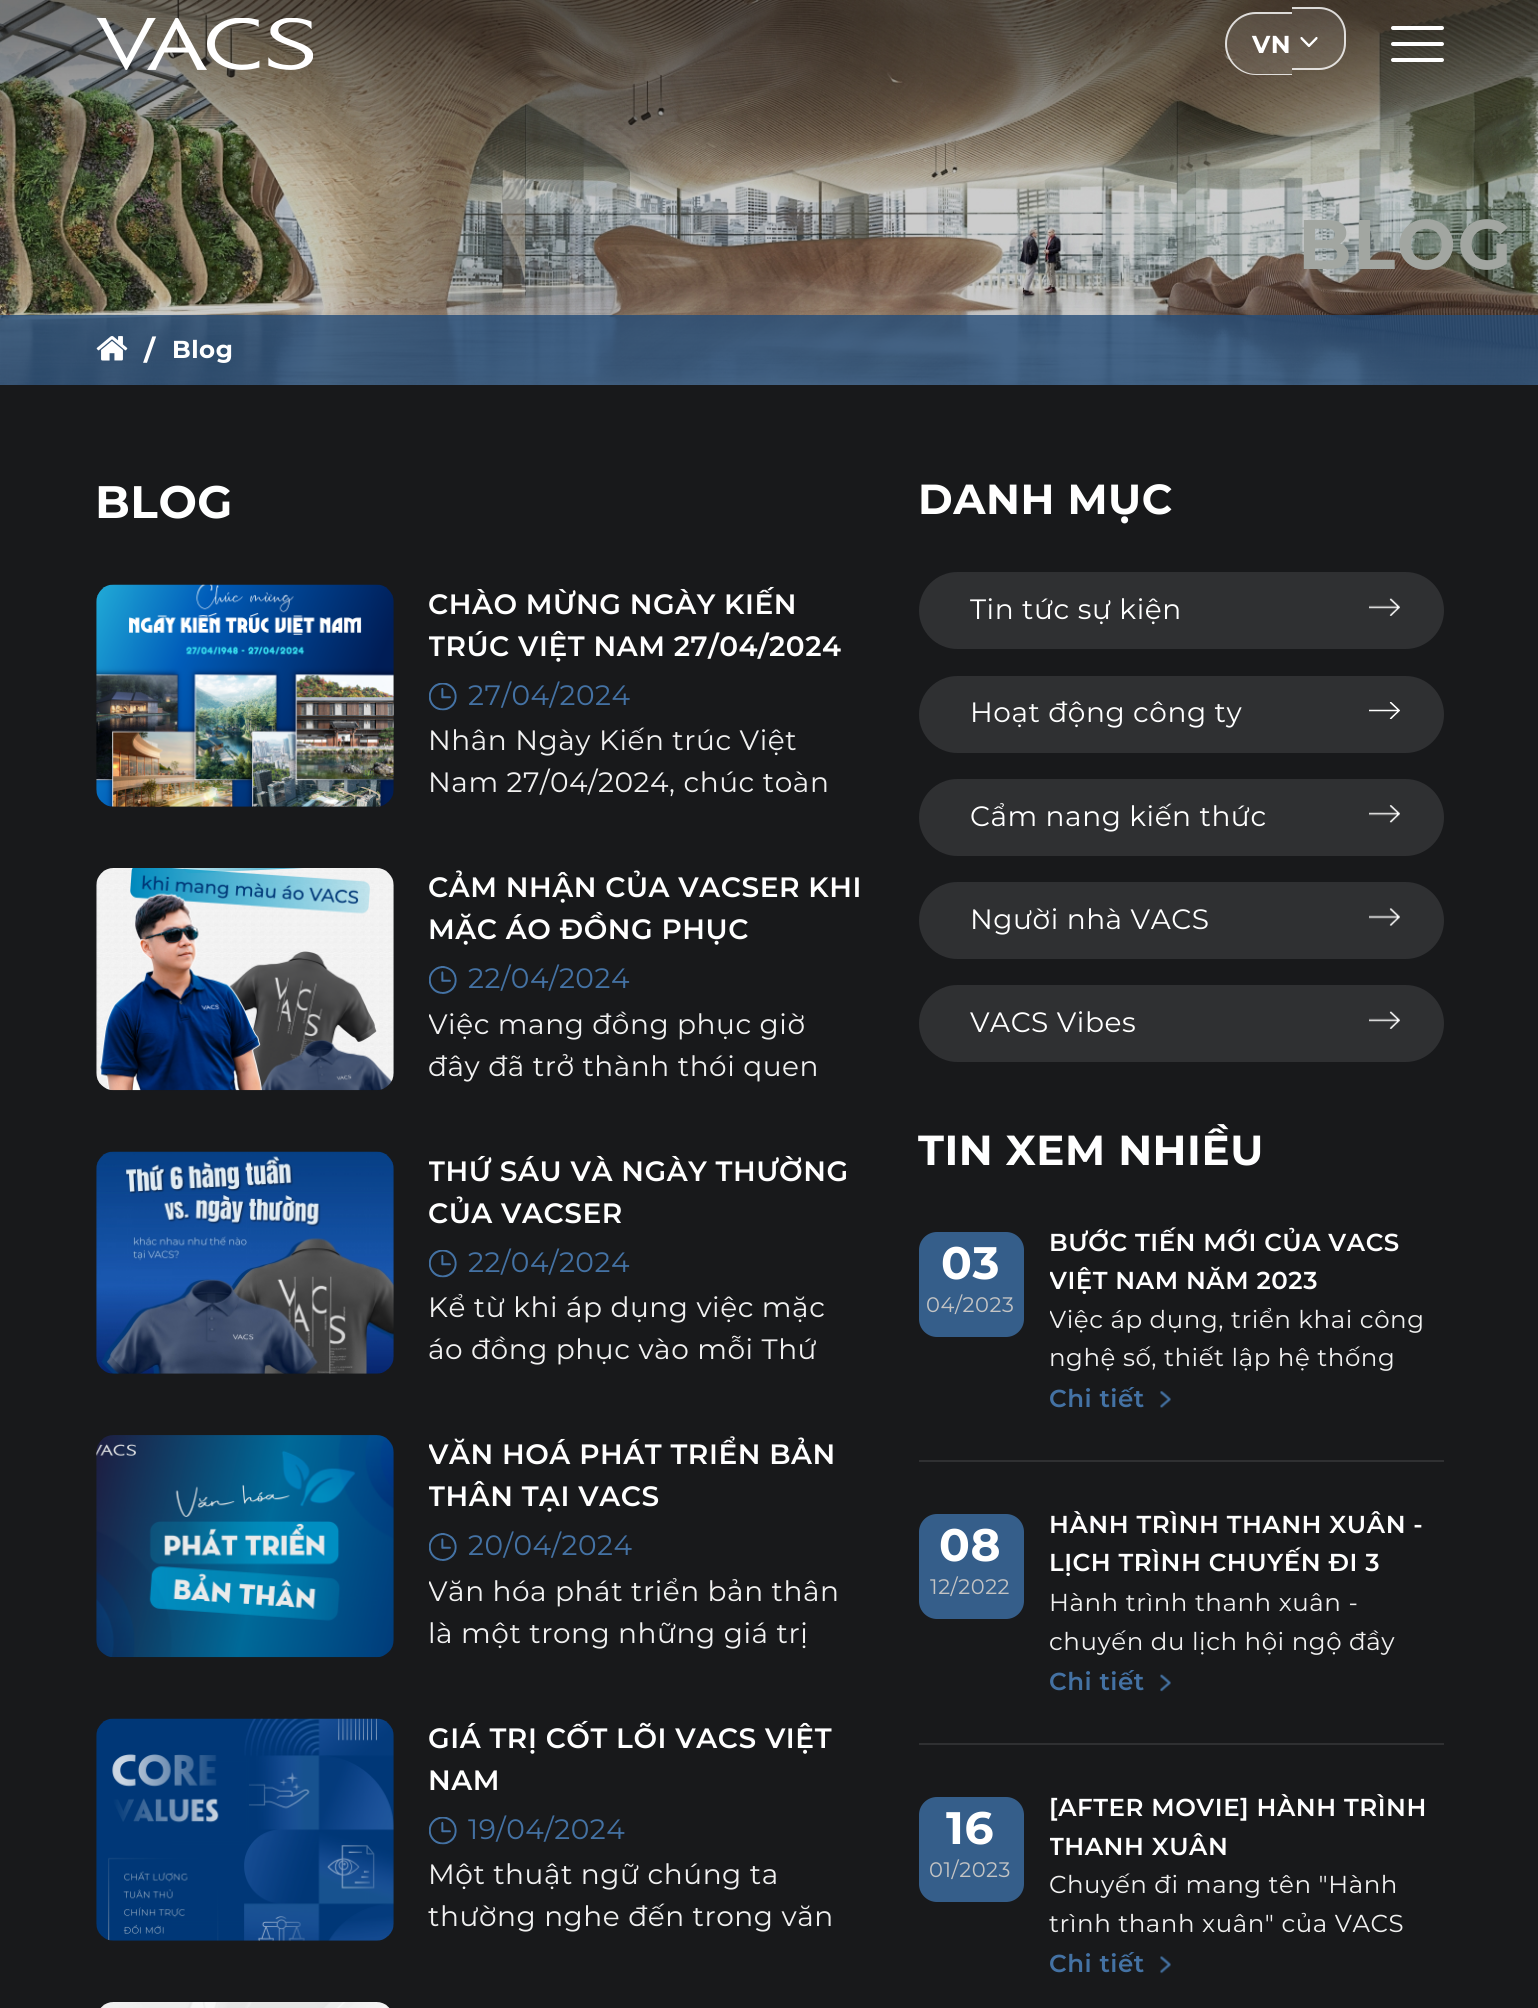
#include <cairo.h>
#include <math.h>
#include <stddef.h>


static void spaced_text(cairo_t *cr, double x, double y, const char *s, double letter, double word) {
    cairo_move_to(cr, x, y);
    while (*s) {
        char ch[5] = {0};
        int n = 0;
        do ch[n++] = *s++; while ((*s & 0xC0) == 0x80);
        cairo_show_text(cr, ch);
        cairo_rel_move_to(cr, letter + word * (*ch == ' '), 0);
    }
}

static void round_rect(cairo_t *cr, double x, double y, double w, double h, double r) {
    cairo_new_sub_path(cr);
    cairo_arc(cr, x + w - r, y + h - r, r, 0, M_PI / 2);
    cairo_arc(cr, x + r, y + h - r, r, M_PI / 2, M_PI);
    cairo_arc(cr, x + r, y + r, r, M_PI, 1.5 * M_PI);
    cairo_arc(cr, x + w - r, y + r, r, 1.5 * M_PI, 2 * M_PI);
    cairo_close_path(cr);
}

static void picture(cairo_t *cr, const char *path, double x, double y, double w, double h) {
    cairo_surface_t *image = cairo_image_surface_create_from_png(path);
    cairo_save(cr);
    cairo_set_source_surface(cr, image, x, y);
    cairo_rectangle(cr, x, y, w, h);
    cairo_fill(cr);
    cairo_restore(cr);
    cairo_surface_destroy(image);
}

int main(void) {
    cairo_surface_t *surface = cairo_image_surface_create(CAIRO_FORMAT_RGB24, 1538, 2008);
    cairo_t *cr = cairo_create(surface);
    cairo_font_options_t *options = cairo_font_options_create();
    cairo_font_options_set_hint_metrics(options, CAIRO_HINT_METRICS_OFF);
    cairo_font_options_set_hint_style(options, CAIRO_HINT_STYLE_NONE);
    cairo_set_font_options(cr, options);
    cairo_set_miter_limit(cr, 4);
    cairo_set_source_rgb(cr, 0.094, 0.098, 0.106);
    cairo_paint(cr);
    picture(cr, "img3.png", 0, 0, 1538, 385);
    picture(cr, "img1.png", 96, 18, 217, 52);
    cairo_set_source_rgba(cr, 1, 1, 1, 0.1);
    cairo_new_path(cr);
    cairo_move_to(cr, 1256.5, 12);
    cairo_line_to(cr, 1292, 12);
    cairo_line_to(cr, 1292, 75);
    cairo_line_to(cr, 1256.5, 75);
    cairo_curve_to(cr, 1239, 75, 1225, 61, 1225, 43.5);
    cairo_curve_to(cr, 1225, 26, 1239, 12, 1256.5, 12);
    cairo_close_path(cr);
    cairo_fill(cr);
    cairo_set_source_rgba(cr, 1, 1, 1, 0.8);
    cairo_set_fill_rule(cr, CAIRO_FILL_RULE_EVEN_ODD);
    cairo_new_path(cr);
    cairo_move_to(cr, 1256, 12);
    cairo_line_to(cr, 1292, 12);
    cairo_line_to(cr, 1292, 75);
    cairo_line_to(cr, 1256, 75);
    cairo_curve_to(cr, 1239, 75, 1225, 61, 1225, 44);
    cairo_curve_to(cr, 1225, 26, 1239, 12, 1256, 12);
    cairo_close_path(cr);
    cairo_move_to(cr, 1256, 14);
    cairo_line_to(cr, 1292, 14);
    cairo_line_to(cr, 1292, 74);
    cairo_line_to(cr, 1256, 74);
    cairo_curve_to(cr, 1240, 74, 1227, 60, 1227, 44);
    cairo_curve_to(cr, 1227, 27, 1240, 14, 1256, 14);
    cairo_close_path(cr);
    cairo_fill(cr);
    cairo_select_font_face(cr, "Montserrat", CAIRO_FONT_SLANT_NORMAL, CAIRO_FONT_WEIGHT_BOLD);
    cairo_set_font_size(cr, 24.5);
    cairo_set_source_rgb(cr, 1, 1, 1);
    spaced_text(cr, 1252, 53, "VN", 0.55, 0);
    cairo_set_source_rgba(cr, 1, 1, 1, 0.1);
    cairo_new_path(cr);
    cairo_move_to(cr, 1292, 7);
    cairo_line_to(cr, 1319, 7);
    cairo_curve_to(cr, 1334, 7, 1346, 19, 1346, 34);
    cairo_line_to(cr, 1346, 43);
    cairo_curve_to(cr, 1346, 58, 1334, 70, 1319, 70);
    cairo_line_to(cr, 1292, 70);
    cairo_close_path(cr);
    cairo_fill(cr);
    cairo_set_source_rgba(cr, 1, 1, 1, 0.8);
    cairo_new_path(cr);
    cairo_move_to(cr, 1292, 7);
    cairo_line_to(cr, 1319, 7);
    cairo_curve_to(cr, 1334, 7, 1346, 19, 1346, 34);
    cairo_line_to(cr, 1346, 43);
    cairo_curve_to(cr, 1346, 58, 1334, 70, 1319, 70);
    cairo_line_to(cr, 1292, 70);
    cairo_close_path(cr);
    cairo_move_to(cr, 1292, 9);
    cairo_line_to(cr, 1319, 9);
    cairo_curve_to(cr, 1333, 9, 1344, 20, 1344, 34);
    cairo_line_to(cr, 1344, 43);
    cairo_curve_to(cr, 1344, 57, 1333, 68, 1319, 68);
    cairo_line_to(cr, 1292, 68);
    cairo_close_path(cr);
    cairo_fill(cr);
    picture(cr, "img2.png", 1300, 37, 18, 10);
    cairo_set_source_rgb(cr, 1, 1, 1);
    round_rect(cr, 1391, 26, 53, 4, 2);
    cairo_fill(cr);
    round_rect(cr, 1391, 42, 53, 4, 2);
    cairo_fill(cr);
    round_rect(cr, 1391, 58, 53, 4, 2);
    cairo_fill(cr);
    cairo_set_font_size(cr, 70);
    cairo_set_source_rgb(cr, 0.635, 0.651, 0.631);
    spaced_text(cr, 1298, 269, "BLOG", 1.5, 0);
    cairo_set_source_rgba(cr, 0.145, 0.302, 0.471, 0.8);
    cairo_rectangle(cr, 0, 315, 1538, 70);
    cairo_fill(cr);
    picture(cr, "img4.png", 96, 336, 32, 25);
    cairo_set_font_size(cr, 28);
    cairo_set_source_rgb(cr, 1, 1, 1);
    spaced_text(cr, 144, 360, "/", 0.55, 0);
    cairo_set_font_size(cr, 24.5);
    spaced_text(cr, 172, 358, "Blog", 0.5, 0);
    cairo_set_font_size(cr, 45.5);
    spaced_text(cr, 95, 518, "BLOG", 0.55, 0);
    picture(cr, "img5.png", 96, 584, 298, 223);
    cairo_select_font_face(cr, "Montserrat SemiBold", CAIRO_FONT_SLANT_NORMAL, CAIRO_FONT_WEIGHT_NORMAL);
    cairo_set_font_size(cr, 28);
    spaced_text(cr, 428, 614, "CHÀO MỪNG NGÀY KIẾN", 0.55, 0);
    cairo_save(cr);
    cairo_set_fill_rule(cr, CAIRO_FILL_RULE_WINDING);
    cairo_rectangle(cr, 429, 585, 437, 84);
    cairo_clip(cr);
    spaced_text(cr, 428, 656, "TRÚC VIỆT NAM 27/04/2024", 0.55, 0);
    cairo_restore(cr);
    picture(cr, "img6.png", 429, 683, 28, 28);
    cairo_select_font_face(cr, "Montserrat", CAIRO_FONT_SLANT_NORMAL, CAIRO_FONT_WEIGHT_NORMAL);
    cairo_set_source_rgb(cr, 0.267, 0.447, 0.643);
    spaced_text(cr, 468, 705, "27/04/2024", 0.55, 0);
    cairo_set_source_rgb(cr, 0.945, 0.945, 0.945);
    spaced_text(cr, 428, 750, "Nhân Ngày Kiến trúc Việt", 0.55, 0);
    spaced_text(cr, 428, 792, "Nam 27/04/2024, chúc toàn", 0.55, 0);
    picture(cr, "img7.png", 96, 868, 298, 223);
    cairo_select_font_face(cr, "Montserrat SemiBold", CAIRO_FONT_SLANT_NORMAL, CAIRO_FONT_WEIGHT_NORMAL);
    cairo_set_source_rgb(cr, 1, 1, 1);
    spaced_text(cr, 428, 897, "CẢM NHẬN CỦA VACSER KHI", 0.55, 0);
    spaced_text(cr, 428, 939, "MẶC ÁO ĐỒNG PHỤC", 0.55, 0);
    picture(cr, "img8.png", 429, 966, 28, 28);
    cairo_select_font_face(cr, "Montserrat", CAIRO_FONT_SLANT_NORMAL, CAIRO_FONT_WEIGHT_NORMAL);
    cairo_set_source_rgb(cr, 0.267, 0.447, 0.643);
    spaced_text(cr, 468, 988, "22/04/2024", 0.55, 0);
    cairo_save(cr);
    cairo_set_fill_rule(cr, CAIRO_FILL_RULE_WINDING);
    cairo_rectangle(cr, 429, 1005, 437, 87);
    cairo_clip(cr);
    cairo_set_source_rgb(cr, 0.945, 0.945, 0.945);
    spaced_text(cr, 428, 1034, "Việc mang đồng phục giờ", 0.55, 0);
    cairo_restore(cr);
    cairo_set_source_rgb(cr, 0.945, 0.945, 0.945);
    spaced_text(cr, 428, 1076, "đây đã trở thành thói quen", 0.55, 0);
    picture(cr, "img9.png", 96, 1151, 298, 223);
    cairo_save(cr);
    cairo_set_fill_rule(cr, CAIRO_FILL_RULE_WINDING);
    cairo_rectangle(cr, 429, 1152, 437, 84);
    cairo_clip(cr);
    cairo_select_font_face(cr, "Montserrat SemiBold", CAIRO_FONT_SLANT_NORMAL, CAIRO_FONT_WEIGHT_NORMAL);
    cairo_set_source_rgb(cr, 1, 1, 1);
    spaced_text(cr, 428, 1181, "THỨ SÁU VÀ NGÀY THƯỜNG", 0.55, 0);
    cairo_restore(cr);
    cairo_select_font_face(cr, "Montserrat SemiBold", CAIRO_FONT_SLANT_NORMAL, CAIRO_FONT_WEIGHT_NORMAL);
    cairo_set_source_rgb(cr, 1, 1, 1);
    spaced_text(cr, 428, 1223, "CỦA VACSER", 0.55, 0);
    picture(cr, "img10.png", 429, 1250, 28, 28);
    cairo_select_font_face(cr, "Montserrat", CAIRO_FONT_SLANT_NORMAL, CAIRO_FONT_WEIGHT_NORMAL);
    cairo_set_source_rgb(cr, 0.267, 0.447, 0.643);
    spaced_text(cr, 468, 1272, "22/04/2024", 0.55, 0);
    cairo_set_source_rgb(cr, 0.945, 0.945, 0.945);
    spaced_text(cr, 428, 1317, "Kể từ khi áp dụng việc mặc", 0.55, 0);
    spaced_text(cr, 428, 1359, "áo đồng phục vào mỗi Thứ", 0.55, 0);
    picture(cr, "img11.png", 96, 1435, 298, 223);
    cairo_save(cr);
    cairo_set_fill_rule(cr, CAIRO_FILL_RULE_WINDING);
    cairo_rectangle(cr, 429, 1435, 437, 84);
    cairo_clip(cr);
    cairo_select_font_face(cr, "Montserrat SemiBold", CAIRO_FONT_SLANT_NORMAL, CAIRO_FONT_WEIGHT_NORMAL);
    cairo_set_source_rgb(cr, 1, 1, 1);
    spaced_text(cr, 428, 1464, "VĂN HOÁ PHÁT TRIỂN BẢN", 0.55, 0);
    spaced_text(cr, 428, 1506, "THÂN TẠI VACS", 0.55, 0);
    cairo_restore(cr);
    picture(cr, "img8.png", 429, 1533, 28, 28);
    cairo_set_source_rgb(cr, 0.267, 0.447, 0.643);
    spaced_text(cr, 468, 1555, "20/04/2024", 0.55, 0);
    cairo_save(cr);
    cairo_set_fill_rule(cr, CAIRO_FILL_RULE_WINDING);
    cairo_rectangle(cr, 429, 1572, 437, 87);
    cairo_clip(cr);
    cairo_set_source_rgb(cr, 0.945, 0.945, 0.945);
    spaced_text(cr, 428, 1601, "Văn hóa phát triển bản thân", 0.55, 0);
    cairo_restore(cr);
    cairo_set_source_rgb(cr, 0.945, 0.945, 0.945);
    spaced_text(cr, 428, 1643, "là một trong những giá trị", 0.55, 0);
    picture(cr, "img12.png", 96, 1718, 298, 223);
    cairo_select_font_face(cr, "Montserrat SemiBold", CAIRO_FONT_SLANT_NORMAL, CAIRO_FONT_WEIGHT_NORMAL);
    cairo_set_source_rgb(cr, 1, 1, 1);
    spaced_text(cr, 428, 1748, "GIÁ TRỊ CỐT LÕI VACS VIỆT", 0.55, 0);
    spaced_text(cr, 428, 1790, "NAM", 0.55, 0);
    picture(cr, "img6.png", 429, 1817, 28, 28);
    cairo_select_font_face(cr, "Montserrat", CAIRO_FONT_SLANT_NORMAL, CAIRO_FONT_WEIGHT_NORMAL);
    cairo_set_source_rgb(cr, 0.267, 0.447, 0.643);
    spaced_text(cr, 468, 1839, "19/04/2024", 0.55, 0);
    cairo_set_source_rgb(cr, 0.945, 0.945, 0.945);
    spaced_text(cr, 428, 1884, "Một thuật ngữ chúng ta", 0.55, 0);
    spaced_text(cr, 428, 1926, "thường nghe đến trong văn", 0.55, 0);
    picture(cr, "img13.png", 100, 2002, 290, 6);
    cairo_select_font_face(cr, "Montserrat", CAIRO_FONT_SLANT_NORMAL, CAIRO_FONT_WEIGHT_BOLD);
    cairo_set_font_size(cr, 42);
    cairo_set_source_rgb(cr, 1, 1, 1);
    spaced_text(cr, 918, 514, "DANH MỤC", 0.55, 0);
    cairo_set_source_rgb(cr, 0.184, 0.188, 0.196);
    round_rect(cr, 919, 572, 525, 77, 38.5);
    cairo_fill(cr);
    cairo_select_font_face(cr, "Montserrat", CAIRO_FONT_SLANT_NORMAL, CAIRO_FONT_WEIGHT_NORMAL);
    cairo_set_font_size(cr, 28);
    cairo_set_source_rgb(cr, 1, 1, 1);
    spaced_text(cr, 970, 619, "Tin tức sự kiện", 0.55, 0);
    picture(cr, "img14.png", 1369, 598, 31, 18);
    cairo_set_source_rgb(cr, 0.184, 0.188, 0.196);
    round_rect(cr, 919, 676, 525, 77, 38.5);
    cairo_fill(cr);
    cairo_set_source_rgb(cr, 1, 1, 1);
    spaced_text(cr, 970, 722, "Hoạt động công ty", 0.55, 0);
    picture(cr, "img15.png", 1369, 702, 31, 17);
    cairo_set_source_rgb(cr, 0.184, 0.188, 0.196);
    round_rect(cr, 919, 779, 525, 77, 38.5);
    cairo_fill(cr);
    cairo_set_source_rgb(cr, 1, 1, 1);
    spaced_text(cr, 970, 826, "Cẩm nang kiến thức", 0.55, 0);
    picture(cr, "img16.png", 1369, 805, 31, 18);
    cairo_set_source_rgb(cr, 0.184, 0.188, 0.196);
    round_rect(cr, 919, 882, 525, 77, 38.5);
    cairo_fill(cr);
    cairo_set_source_rgb(cr, 1, 1, 1);
    spaced_text(cr, 970, 929, "Người nhà VACS", 0.55, 0);
    picture(cr, "img17.png", 1369, 908, 31, 18);
    cairo_set_source_rgb(cr, 0.184, 0.188, 0.196);
    round_rect(cr, 919, 985, 525, 77, 38.5);
    cairo_fill(cr);
    cairo_set_source_rgb(cr, 1, 1, 1);
    spaced_text(cr, 970, 1032, "VACS Vibes", 0.55, 0);
    picture(cr, "img14.png", 1369, 1011, 31, 18);
    cairo_select_font_face(cr, "Montserrat", CAIRO_FONT_SLANT_NORMAL, CAIRO_FONT_WEIGHT_BOLD);
    cairo_set_font_size(cr, 42);
    spaced_text(cr, 918, 1165, "TIN XEM NHIỀU", 0.55, 0);
    cairo_set_source_rgb(cr, 0.208, 0.369, 0.541);
    round_rect(cr, 919, 1232, 105, 105, 18);
    cairo_fill(cr);
    cairo_set_font_size(cr, 45.5);
    cairo_set_source_rgb(cr, 1, 1, 1);
    spaced_text(cr, 941, 1279, "03", 0.55, 0);
    cairo_select_font_face(cr, "Montserrat", CAIRO_FONT_SLANT_NORMAL, CAIRO_FONT_WEIGHT_NORMAL);
    cairo_set_font_size(cr, 21);
    cairo_set_source_rgb(cr, 0.769, 0.769, 0.769);
    spaced_text(cr, 926, 1312, "04/2023", 0.55, 0);
    cairo_select_font_face(cr, "Montserrat SemiBold", CAIRO_FONT_SLANT_NORMAL, CAIRO_FONT_WEIGHT_NORMAL);
    cairo_set_font_size(cr, 24.5);
    cairo_set_source_rgb(cr, 1, 1, 1);
    spaced_text(cr, 1049, 1251, "BƯỚC TIẾN MỚI CỦA VACS", 0.55, 0);
    cairo_save(cr);
    cairo_set_fill_rule(cr, CAIRO_FILL_RULE_WINDING);
    cairo_rectangle(cr, 1050, 1223, 394, 77);
    cairo_clip(cr);
    spaced_text(cr, 1049, 1289, "VIỆT NAM NĂM 2023", 0.55, 0);
    cairo_restore(cr);
    cairo_save(cr);
    cairo_set_fill_rule(cr, CAIRO_FILL_RULE_WINDING);
    cairo_rectangle(cr, 1050, 1300, 394, 79);
    cairo_clip(cr);
    cairo_select_font_face(cr, "Montserrat", CAIRO_FONT_SLANT_NORMAL, CAIRO_FONT_WEIGHT_NORMAL);
    cairo_set_source_rgb(cr, 0.945, 0.945, 0.945);
    spaced_text(cr, 1049, 1328, "Việc áp dụng, triển khai công", 0.55, 0);
    cairo_restore(cr);
    cairo_select_font_face(cr, "Montserrat", CAIRO_FONT_SLANT_NORMAL, CAIRO_FONT_WEIGHT_NORMAL);
    cairo_set_source_rgb(cr, 0.945, 0.945, 0.945);
    spaced_text(cr, 1049, 1366, "nghệ số, thiết lập hệ thống", 0.55, 0);
    cairo_select_font_face(cr, "Montserrat SemiBold", CAIRO_FONT_SLANT_NORMAL, CAIRO_FONT_WEIGHT_NORMAL);
    cairo_set_source_rgb(cr, 0.267, 0.447, 0.643);
    spaced_text(cr, 1049, 1407, "Chi tiết", 0.55, 0);
    picture(cr, "img18.png", 1160, 1391, 11, 17);
    cairo_set_source_rgb(cr, 0.184, 0.188, 0.196);
    cairo_rectangle(cr, 919, 1460, 525, 2);
    cairo_fill(cr);
    cairo_set_source_rgb(cr, 0.208, 0.369, 0.541);
    round_rect(cr, 919, 1514, 105, 105, 18);
    cairo_fill(cr);
    cairo_select_font_face(cr, "Montserrat", CAIRO_FONT_SLANT_NORMAL, CAIRO_FONT_WEIGHT_BOLD);
    cairo_set_font_size(cr, 45.5);
    cairo_set_source_rgb(cr, 1, 1, 1);
    spaced_text(cr, 939, 1561, "08", 0.55, 0);
    cairo_select_font_face(cr, "Montserrat", CAIRO_FONT_SLANT_NORMAL, CAIRO_FONT_WEIGHT_NORMAL);
    cairo_set_font_size(cr, 21);
    cairo_set_source_rgb(cr, 0.769, 0.769, 0.769);
    spaced_text(cr, 930, 1594, "12/2022", 0.55, 0);
    cairo_select_font_face(cr, "Montserrat SemiBold", CAIRO_FONT_SLANT_NORMAL, CAIRO_FONT_WEIGHT_NORMAL);
    cairo_set_font_size(cr, 24.5);
    cairo_set_source_rgb(cr, 1, 1, 1);
    spaced_text(cr, 1049, 1533, "HÀNH TRÌNH THANH XUÂN -", 0.55, 0);
    spaced_text(cr, 1049, 1571, "LỊCH TRÌNH CHUYẾN ĐI 3", 0.55, 0);
    cairo_select_font_face(cr, "Montserrat", CAIRO_FONT_SLANT_NORMAL, CAIRO_FONT_WEIGHT_NORMAL);
    cairo_set_source_rgb(cr, 0.945, 0.945, 0.945);
    spaced_text(cr, 1049, 1611, "Hành trình thanh xuân -", 0.55, 0);
    spaced_text(cr, 1049, 1650, "chuyến du lịch hội ngộ đầy", 0.55, 0);
    cairo_select_font_face(cr, "Montserrat SemiBold", CAIRO_FONT_SLANT_NORMAL, CAIRO_FONT_WEIGHT_NORMAL);
    cairo_set_source_rgb(cr, 0.267, 0.447, 0.643);
    spaced_text(cr, 1049, 1690, "Chi tiết", 0.55, 0);
    picture(cr, "img19.png", 1160, 1674, 11, 18);
    cairo_set_source_rgb(cr, 0.184, 0.188, 0.196);
    cairo_rectangle(cr, 919, 1743, 525, 2);
    cairo_fill(cr);
    cairo_set_source_rgb(cr, 0.208, 0.369, 0.541);
    round_rect(cr, 919, 1797, 105, 105, 18);
    cairo_fill(cr);
    cairo_select_font_face(cr, "Montserrat", CAIRO_FONT_SLANT_NORMAL, CAIRO_FONT_WEIGHT_BOLD);
    cairo_set_font_size(cr, 45.5);
    cairo_set_source_rgb(cr, 1, 1, 1);
    spaced_text(cr, 946, 1844, "16", 0.55, 0);
    cairo_select_font_face(cr, "Montserrat", CAIRO_FONT_SLANT_NORMAL, CAIRO_FONT_WEIGHT_NORMAL);
    cairo_set_font_size(cr, 21);
    cairo_set_source_rgb(cr, 0.769, 0.769, 0.769);
    spaced_text(cr, 929, 1877, "01/2023", 0.55, 0);
    cairo_select_font_face(cr, "Montserrat SemiBold", CAIRO_FONT_SLANT_NORMAL, CAIRO_FONT_WEIGHT_NORMAL);
    cairo_set_font_size(cr, 24.5);
    cairo_set_source_rgb(cr, 1, 1, 1);
    spaced_text(cr, 1049, 1816, "[AFTER MOVIE] HÀNH TRÌNH", 0.55, 0);
    cairo_save(cr);
    cairo_set_fill_rule(cr, CAIRO_FILL_RULE_WINDING);
    cairo_rectangle(cr, 1050, 1789, 394, 77);
    cairo_clip(cr);
    spaced_text(cr, 1049, 1855, "THANH XUÂN", 0.55, 0);
    cairo_restore(cr);
    cairo_select_font_face(cr, "Montserrat", CAIRO_FONT_SLANT_NORMAL, CAIRO_FONT_WEIGHT_NORMAL);
    cairo_set_source_rgb(cr, 0.945, 0.945, 0.945);
    spaced_text(cr, 1049, 1893, "Chuyến đi mang tên \"Hành", 0.55, 0);
    spaced_text(cr, 1049, 1932, "trình thanh xuân\" của VACS", 0.55, 0);
    cairo_select_font_face(cr, "Montserrat SemiBold", CAIRO_FONT_SLANT_NORMAL, CAIRO_FONT_WEIGHT_NORMAL);
    cairo_set_source_rgb(cr, 0.267, 0.447, 0.643);
    spaced_text(cr, 1049, 1972, "Chi tiết", 0.55, 0);
    picture(cr, "img20.png", 1160, 1956, 11, 18);
    cairo_surface_write_to_png(surface, "page.png");
    cairo_font_options_destroy(options);
    cairo_destroy(cr);
    cairo_surface_destroy(surface);
    return 0;
}
